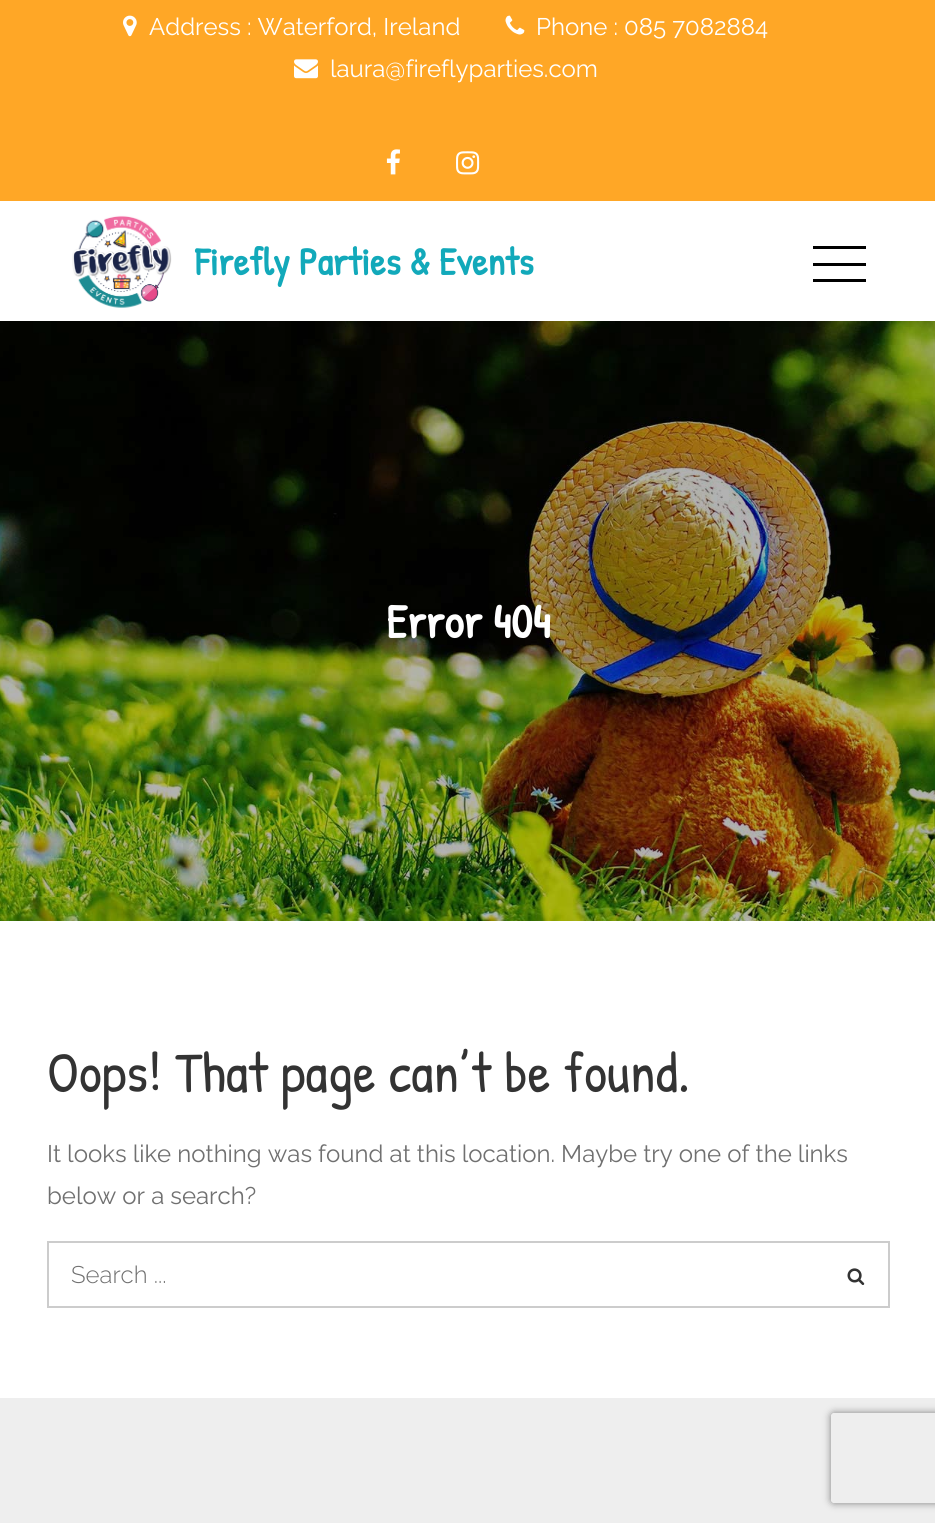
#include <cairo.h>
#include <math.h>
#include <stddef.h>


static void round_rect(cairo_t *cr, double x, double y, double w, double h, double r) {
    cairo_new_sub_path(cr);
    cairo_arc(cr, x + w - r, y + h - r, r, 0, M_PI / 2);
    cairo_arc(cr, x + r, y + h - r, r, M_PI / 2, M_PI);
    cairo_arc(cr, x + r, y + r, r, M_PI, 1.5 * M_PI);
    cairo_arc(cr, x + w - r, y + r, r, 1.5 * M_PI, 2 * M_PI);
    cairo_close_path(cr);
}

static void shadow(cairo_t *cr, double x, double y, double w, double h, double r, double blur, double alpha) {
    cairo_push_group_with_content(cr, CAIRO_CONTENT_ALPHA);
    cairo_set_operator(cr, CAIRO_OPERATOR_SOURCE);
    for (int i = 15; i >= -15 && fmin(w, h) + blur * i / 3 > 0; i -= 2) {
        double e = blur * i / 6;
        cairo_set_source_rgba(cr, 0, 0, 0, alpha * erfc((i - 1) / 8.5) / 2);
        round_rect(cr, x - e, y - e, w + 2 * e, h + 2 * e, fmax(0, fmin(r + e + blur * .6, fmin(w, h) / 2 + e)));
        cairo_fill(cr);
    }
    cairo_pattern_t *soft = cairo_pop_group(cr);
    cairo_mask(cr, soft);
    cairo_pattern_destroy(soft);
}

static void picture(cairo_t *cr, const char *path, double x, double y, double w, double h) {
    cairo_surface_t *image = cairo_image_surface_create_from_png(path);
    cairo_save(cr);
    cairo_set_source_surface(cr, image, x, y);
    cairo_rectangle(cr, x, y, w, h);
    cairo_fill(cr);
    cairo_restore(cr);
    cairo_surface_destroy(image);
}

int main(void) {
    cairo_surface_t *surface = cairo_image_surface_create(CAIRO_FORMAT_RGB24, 935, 1523);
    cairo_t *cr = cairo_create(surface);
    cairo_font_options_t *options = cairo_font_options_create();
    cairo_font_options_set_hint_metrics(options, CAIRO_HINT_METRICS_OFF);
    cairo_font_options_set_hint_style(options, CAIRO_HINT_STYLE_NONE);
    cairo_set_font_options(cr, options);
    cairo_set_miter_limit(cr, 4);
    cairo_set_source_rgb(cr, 1, 1, 1);
    cairo_paint(cr);
    cairo_set_source_rgb(cr, 1, 0.655, 0.149);
    cairo_rectangle(cr, 0, 0, 935, 201);
    cairo_fill(cr);
    picture(cr, "img1.png", 123, 15, 14, 22);
    cairo_select_font_face(cr, "Raleway", CAIRO_FONT_SLANT_NORMAL, CAIRO_FONT_WEIGHT_NORMAL);
    cairo_set_font_size(cr, 24);
    cairo_set_source_rgb(cr, 1, 1, 1);
    cairo_move_to(cr, 149, 35);
    cairo_show_text(cr, "Address : Waterford, Ireland");
    picture(cr, "img2.png", 505, 15, 20, 20);
    cairo_move_to(cr, 536, 35);
    cairo_show_text(cr, "Phone : 085 7082884");
    picture(cr, "img3.png", 294, 59, 24, 20);
    cairo_move_to(cr, 330, 77);
    cairo_show_text(cr, "laura@fireflyparties.com");
    picture(cr, "img4.png", 386, 149, 14, 26);
    picture(cr, "img5.png", 456, 151, 24, 24);
    picture(cr, "img6.png", 72, 215, 100, 93);
    cairo_select_font_face(cr, "Patrick Hand", CAIRO_FONT_SLANT_NORMAL, CAIRO_FONT_WEIGHT_BOLD);
    cairo_set_font_size(cr, 39);
    cairo_set_source_rgb(cr, 0.071, 0.663, 0.729);
    cairo_move_to(cr, 195, 275);
    cairo_show_text(cr, "Firefly Parties & Events");
    cairo_set_source_rgb(cr, 0, 0, 0);
    cairo_rectangle(cr, 813, 246, 53, 3);
    cairo_fill(cr);
    cairo_rectangle(cr, 813, 263, 53, 3);
    cairo_fill(cr);
    cairo_rectangle(cr, 813, 279, 53, 3);
    cairo_fill(cr);
    picture(cr, "img7.png", 0, 321, 935, 600);
    cairo_set_font_size(cr, 48);
    cairo_set_source_rgb(cr, 1, 1, 1);
    cairo_move_to(cr, 386, 638);
    cairo_show_text(cr, "Error 404");
    cairo_select_font_face(cr, "Patrick Hand", CAIRO_FONT_SLANT_NORMAL, CAIRO_FONT_WEIGHT_NORMAL);
    cairo_set_font_size(cr, 57);
    cairo_set_source_rgb(cr, 0.2, 0.2, 0.2);
    cairo_move_to(cr, 47, 1092);
    cairo_show_text(cr, "Oops! That page can’t be found.");
    cairo_select_font_face(cr, "Raleway", CAIRO_FONT_SLANT_NORMAL, CAIRO_FONT_WEIGHT_NORMAL);
    cairo_set_font_size(cr, 24);
    cairo_set_source_rgb(cr, 0.439, 0.439, 0.439);
    cairo_move_to(cr, 47, 1162);
    cairo_show_text(cr, "It looks like nothing was found at this location. Maybe try one of the links");
    cairo_move_to(cr, 47, 1204);
    cairo_show_text(cr, "below or a search?");
    cairo_rectangle(cr, 48, 1242, 841, 65);
    cairo_set_source_rgb(cr, 0.8, 0.8, 0.8);
    cairo_stroke(cr);
    cairo_select_font_face(cr, "Raleway Light", CAIRO_FONT_SLANT_NORMAL, CAIRO_FONT_WEIGHT_NORMAL);
    cairo_set_source_rgb(cr, 0.439, 0.439, 0.439);
    cairo_move_to(cr, 71, 1283);
    cairo_show_text(cr, "Search ...");
    picture(cr, "img8.png", 847, 1268, 18, 17);
    cairo_set_source_rgb(cr, 0.933, 0.933, 0.933);
    cairo_rectangle(cr, 0, 1398, 935, 125);
    cairo_fill(cr);
    cairo_save(cr);
    cairo_set_fill_rule(cr, CAIRO_FILL_RULE_EVEN_ODD);
    cairo_new_path(cr);
    cairo_move_to(cr, 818, 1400);
    cairo_line_to(cr, 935, 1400);
    cairo_line_to(cr, 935, 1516);
    cairo_line_to(cr, 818, 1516);
    cairo_close_path(cr);
    cairo_move_to(cr, 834, 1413);
    cairo_line_to(cr, 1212, 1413);
    cairo_curve_to(cr, 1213.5, 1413, 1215, 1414.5, 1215, 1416);
    cairo_line_to(cr, 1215, 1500);
    cairo_curve_to(cr, 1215, 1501.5, 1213.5, 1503, 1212, 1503);
    cairo_line_to(cr, 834, 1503);
    cairo_curve_to(cr, 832.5, 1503, 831, 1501.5, 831, 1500);
    cairo_line_to(cr, 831, 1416);
    cairo_curve_to(cr, 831, 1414.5, 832.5, 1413, 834, 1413);
    cairo_close_path(cr);
    cairo_clip(cr);
    cairo_set_source_rgb(cr, 0.502, 0.502, 0.502);
    shadow(cr, 831, 1413, 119, 90, 3, 4, 1);
    cairo_restore(cr);
    cairo_surface_write_to_png(surface, "page.png");
    cairo_font_options_destroy(options);
    cairo_destroy(cr);
    cairo_surface_destroy(surface);
    return 0;
}
